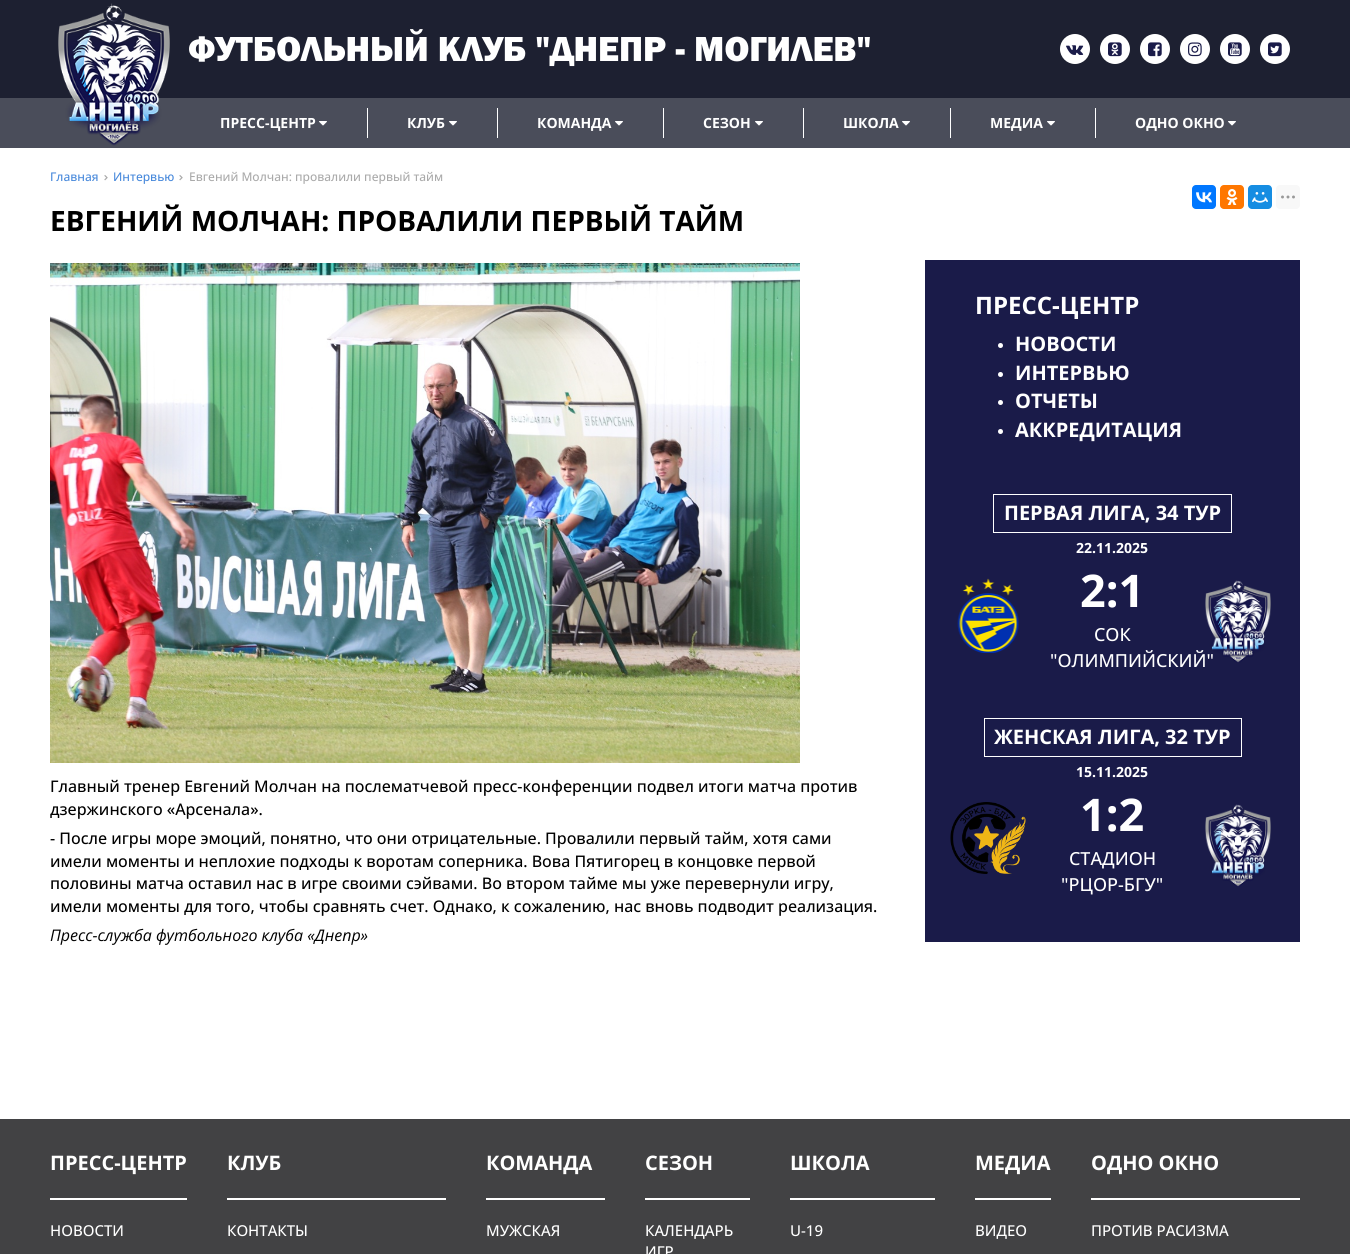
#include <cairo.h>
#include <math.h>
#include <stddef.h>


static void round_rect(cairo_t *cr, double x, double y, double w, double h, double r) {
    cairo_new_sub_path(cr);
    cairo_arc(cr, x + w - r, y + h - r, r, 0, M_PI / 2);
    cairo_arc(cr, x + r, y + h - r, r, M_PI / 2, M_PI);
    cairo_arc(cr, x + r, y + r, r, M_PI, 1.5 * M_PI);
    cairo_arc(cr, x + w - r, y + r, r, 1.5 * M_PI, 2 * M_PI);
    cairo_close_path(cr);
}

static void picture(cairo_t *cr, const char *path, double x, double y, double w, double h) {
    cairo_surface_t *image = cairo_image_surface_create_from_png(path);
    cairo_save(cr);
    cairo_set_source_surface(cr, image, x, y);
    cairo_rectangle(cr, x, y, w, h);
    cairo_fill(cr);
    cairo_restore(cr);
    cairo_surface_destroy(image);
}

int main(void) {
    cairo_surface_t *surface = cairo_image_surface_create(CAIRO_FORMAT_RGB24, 1350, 1254);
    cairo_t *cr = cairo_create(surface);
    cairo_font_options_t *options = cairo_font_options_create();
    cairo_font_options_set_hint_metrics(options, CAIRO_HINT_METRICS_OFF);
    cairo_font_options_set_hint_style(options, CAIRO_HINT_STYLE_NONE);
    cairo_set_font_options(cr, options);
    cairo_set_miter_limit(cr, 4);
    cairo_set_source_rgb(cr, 1, 1, 1);
    cairo_paint(cr);
    cairo_set_source_rgb(cr, 0.114, 0.125, 0.192);
    cairo_rectangle(cr, 0, 0, 1350, 98);
    cairo_fill(cr);
    cairo_set_source_rgb(cr, 0.29, 0.302, 0.353);
    cairo_rectangle(cr, 0, 98, 1350, 50);
    cairo_fill(cr);
    picture(cr, "img1.png", 58, 3, 112, 143);
    cairo_select_font_face(cr, "Franklin Gothic Black", CAIRO_FONT_SLANT_NORMAL, CAIRO_FONT_WEIGHT_NORMAL);
    cairo_set_font_size(cr, 36);
    cairo_set_source_rgb(cr, 1, 1, 1);
    cairo_move_to(cr, 188, 61);
    cairo_show_text(cr, "ФУТБОЛЬНЫЙ КЛУБ \"ДНЕПР - МОГИЛЕВ\"");
    cairo_new_path(cr);
    cairo_arc(cr, 1075, 49, 15, 0, 2 * M_PI);
    cairo_fill(cr);
    picture(cr, "img2.png", 1066, 45, 18, 10);
    cairo_arc(cr, 1115, 49, 15, 0, 2 * M_PI);
    cairo_fill(cr);
    picture(cr, "img3.png", 1108, 42, 14, 15);
    cairo_arc(cr, 1155, 49, 15, 0, 2 * M_PI);
    cairo_fill(cr);
    picture(cr, "img4.png", 1148, 42, 14, 15);
    cairo_arc(cr, 1195, 49, 15, 0, 2 * M_PI);
    cairo_fill(cr);
    picture(cr, "img5.png", 1188, 42, 14, 15);
    cairo_arc(cr, 1235, 49, 15, 0, 2 * M_PI);
    cairo_fill(cr);
    picture(cr, "img6.png", 1228, 42, 14, 15);
    cairo_arc(cr, 1275, 49, 15, 0, 2 * M_PI);
    cairo_fill(cr);
    picture(cr, "img7.png", 1268, 42, 14, 15);
    cairo_select_font_face(cr, "Open Sans", CAIRO_FONT_SLANT_NORMAL, CAIRO_FONT_WEIGHT_BOLD);
    cairo_set_font_size(cr, 14);
    cairo_move_to(cr, 220, 128);
    cairo_show_text(cr, "ПРЕСС-ЦЕНТР");
    picture(cr, "img8.png", 319, 121, 8, 5);
    cairo_rectangle(cr, 367, 108, 1, 30);
    cairo_fill(cr);
    cairo_move_to(cr, 407, 128);
    cairo_show_text(cr, "КЛУБ");
    picture(cr, "img8.png", 449, 121, 8, 5);
    cairo_rectangle(cr, 497, 108, 1, 30);
    cairo_fill(cr);
    cairo_move_to(cr, 537, 128);
    cairo_show_text(cr, "КОМАНДА");
    picture(cr, "img8.png", 615, 121, 8, 5);
    cairo_rectangle(cr, 663, 108, 1, 30);
    cairo_fill(cr);
    cairo_move_to(cr, 703, 128);
    cairo_show_text(cr, "СЕЗОН");
    picture(cr, "img8.png", 755, 121, 8, 5);
    cairo_rectangle(cr, 803, 108, 1, 30);
    cairo_fill(cr);
    cairo_move_to(cr, 843, 128);
    cairo_show_text(cr, "ШКОЛА");
    picture(cr, "img8.png", 902, 121, 8, 5);
    cairo_rectangle(cr, 950, 108, 1, 30);
    cairo_fill(cr);
    cairo_move_to(cr, 990, 128);
    cairo_show_text(cr, "МЕДИА");
    picture(cr, "img8.png", 1047, 121, 8, 5);
    cairo_rectangle(cr, 1095, 108, 1, 30);
    cairo_fill(cr);
    cairo_move_to(cr, 1135, 128);
    cairo_show_text(cr, "ОДНО ОКНО");
    picture(cr, "img8.png", 1228, 121, 8, 5);
    cairo_select_font_face(cr, "Open Sans Medium", CAIRO_FONT_SLANT_NORMAL, CAIRO_FONT_WEIGHT_NORMAL);
    cairo_set_font_size(cr, 12);
    cairo_set_source_rgb(cr, 0.282, 0.537, 0.859);
    cairo_move_to(cr, 50, 181);
    cairo_show_text(cr, "Главная");
    picture(cr, "img9.png", 104, 175, 4, 6);
    cairo_move_to(cr, 113, 181);
    cairo_show_text(cr, "Интервью");
    picture(cr, "img9.png", 179, 175, 4, 6);
    cairo_set_source_rgb(cr, 0.667, 0.667, 0.667);
    cairo_move_to(cr, 189, 181);
    cairo_show_text(cr, "Евгений Молчан: провалили первый тайм");
    cairo_set_source_rgb(cr, 0, 0.467, 1);
    round_rect(cr, 1192, 185, 24, 24, 4);
    cairo_fill(cr);
    picture(cr, "img10.png", 1196, 192, 16, 11);
    cairo_set_source_rgb(cr, 1, 0.467, 0);
    round_rect(cr, 1220, 185, 24, 24, 4);
    cairo_fill(cr);
    picture(cr, "img11.png", 1226, 189, 12, 16);
    cairo_set_source_rgb(cr, 0.086, 0.553, 0.886);
    round_rect(cr, 1248, 185, 24, 24, 4);
    cairo_fill(cr);
    picture(cr, "img12.png", 1252, 192, 16, 11);
    cairo_set_source_rgb(cr, 0.969, 0.969, 0.969);
    round_rect(cr, 1276, 185, 24, 24, 4);
    cairo_fill(cr);
    picture(cr, "img13.png", 1281, 195, 14, 4);
    cairo_select_font_face(cr, "Open Sans", CAIRO_FONT_SLANT_NORMAL, CAIRO_FONT_WEIGHT_BOLD);
    cairo_set_font_size(cr, 28);
    cairo_set_source_rgb(cr, 0, 0, 0);
    cairo_move_to(cr, 50, 231);
    cairo_show_text(cr, "ЕВГЕНИЙ МОЛЧАН: ПРОВАЛИЛИ ПЕРВЫЙ ТАЙМ");
    picture(cr, "img14.png", 50, 263, 750, 500);
    cairo_select_font_face(cr, "Open Sans Medium", CAIRO_FONT_SLANT_NORMAL, CAIRO_FONT_WEIGHT_NORMAL);
    cairo_set_font_size(cr, 16);
    cairo_move_to(cr, 50, 792);
    cairo_show_text(cr, "Главный тренер Евгений Молчан на послематчевой пресс-конференции подвел итоги матча против");
    cairo_move_to(cr, 50, 815);
    cairo_show_text(cr, "дзержинского «Арсенала».");
    cairo_move_to(cr, 50, 844);
    cairo_show_text(cr, "- После игры море эмоций, понятно, что они отрицательные. Провалили первый тайм, хотя сами");
    cairo_move_to(cr, 50, 867);
    cairo_show_text(cr, "имели моменты и неплохие подходы к воротам соперника. Вова Пятигорец в концовке первой");
    cairo_move_to(cr, 50, 889);
    cairo_show_text(cr, "половины матча оставил нас в игре своими сэйвами. Во втором тайме мы уже перевернули игру,");
    cairo_move_to(cr, 50, 912);
    cairo_show_text(cr, "имели моменты для того, чтобы сравнять счет. Однако, к сожалению, нас вновь подводит реализация.");
    cairo_select_font_face(cr, "Open Sans", CAIRO_FONT_SLANT_ITALIC, CAIRO_FONT_WEIGHT_NORMAL);
    cairo_move_to(cr, 50, 941);
    cairo_show_text(cr, "Пресс-служба футбольного клуба «Днепр»");
    cairo_set_source_rgb(cr, 0.102, 0.106, 0.286);
    cairo_rectangle(cr, 925, 260, 375, 682);
    cairo_fill(cr);
    cairo_select_font_face(cr, "Open Sans", CAIRO_FONT_SLANT_NORMAL, CAIRO_FONT_WEIGHT_BOLD);
    cairo_set_font_size(cr, 24);
    cairo_set_source_rgb(cr, 1, 1, 1);
    cairo_move_to(cr, 975, 314);
    cairo_show_text(cr, "ПРЕСС-ЦЕНТР");
    cairo_new_path(cr);
    cairo_arc(cr, 1000.5, 345.5, 2.5, 0, 2 * M_PI);
    cairo_fill(cr);
    cairo_set_font_size(cr, 20);
    cairo_move_to(cr, 1015, 351);
    cairo_show_text(cr, "НОВОСТИ");
    cairo_new_path(cr);
    cairo_arc(cr, 1000.5, 374.5, 2.5, 0, 2 * M_PI);
    cairo_fill(cr);
    cairo_move_to(cr, 1015, 380);
    cairo_show_text(cr, "ИНТЕРВЬЮ");
    cairo_new_path(cr);
    cairo_arc(cr, 1000.5, 402.5, 2.5, 0, 2 * M_PI);
    cairo_fill(cr);
    cairo_move_to(cr, 1015, 408);
    cairo_show_text(cr, "ОТЧЕТЫ");
    cairo_new_path(cr);
    cairo_arc(cr, 1000.5, 431.5, 2.5, 0, 2 * M_PI);
    cairo_fill(cr);
    cairo_move_to(cr, 1015, 437);
    cairo_show_text(cr, "АККРЕДИТАЦИЯ");
    cairo_rectangle(cr, 993.5, 494.5, 238, 38);
    cairo_set_line_width(cr, 1);
    cairo_stroke(cr);
    cairo_move_to(cr, 1004, 520);
    cairo_show_text(cr, "ПЕРВАЯ ЛИГА, 34 ТУР");
    cairo_set_font_size(cr, 14);
    cairo_move_to(cr, 1076, 553);
    cairo_show_text(cr, "22.11.2025");
    picture(cr, "img15.png", 957, 578, 62, 75);
    cairo_set_font_size(cr, 45);
    cairo_move_to(cr, 1080, 607);
    cairo_show_text(cr, "2:1");
    cairo_select_font_face(cr, "Open Sans Medium", CAIRO_FONT_SLANT_NORMAL, CAIRO_FONT_WEIGHT_NORMAL);
    cairo_set_font_size(cr, 18);
    cairo_move_to(cr, 1094, 641);
    cairo_show_text(cr, "СОК");
    cairo_move_to(cr, 1050, 667);
    cairo_show_text(cr, "\"ОЛИМПИЙСКИЙ\"");
    picture(cr, "img16.png", 1205, 580, 66, 83);
    cairo_rectangle(cr, 984.5, 718.5, 257, 38);
    cairo_stroke(cr);
    cairo_select_font_face(cr, "Open Sans", CAIRO_FONT_SLANT_NORMAL, CAIRO_FONT_WEIGHT_BOLD);
    cairo_set_font_size(cr, 20);
    cairo_move_to(cr, 994, 744);
    cairo_show_text(cr, "ЖЕНСКАЯ ЛИГА, 32 ТУР");
    cairo_set_font_size(cr, 14);
    cairo_move_to(cr, 1076, 777);
    cairo_show_text(cr, "15.11.2025");
    picture(cr, "img17.png", 950, 802, 76, 72);
    cairo_set_font_size(cr, 45);
    cairo_move_to(cr, 1080, 831);
    cairo_show_text(cr, "1:2");
    cairo_select_font_face(cr, "Open Sans Medium", CAIRO_FONT_SLANT_NORMAL, CAIRO_FONT_WEIGHT_NORMAL);
    cairo_set_font_size(cr, 18);
    cairo_move_to(cr, 1069, 865);
    cairo_show_text(cr, "СТАДИОН");
    cairo_move_to(cr, 1061, 891);
    cairo_show_text(cr, "\"РЦОР-БГУ\"");
    picture(cr, "img18.png", 1205, 804, 66, 83);
    cairo_set_source_rgb(cr, 0.259, 0.259, 0.267);
    cairo_rectangle(cr, 0, 1119, 1350, 135);
    cairo_fill(cr);
    cairo_set_source_rgb(cr, 1, 1, 1);
    cairo_rectangle(cr, 50, 1198, 137, 2);
    cairo_fill(cr);
    cairo_select_font_face(cr, "Open Sans", CAIRO_FONT_SLANT_NORMAL, CAIRO_FONT_WEIGHT_BOLD);
    cairo_set_font_size(cr, 20);
    cairo_move_to(cr, 50, 1170);
    cairo_show_text(cr, "ПРЕСС-ЦЕНТР");
    cairo_select_font_face(cr, "Open Sans Medium", CAIRO_FONT_SLANT_NORMAL, CAIRO_FONT_WEIGHT_NORMAL);
    cairo_set_font_size(cr, 15);
    cairo_move_to(cr, 50, 1236);
    cairo_show_text(cr, "НОВОСТИ");
    cairo_rectangle(cr, 227, 1198, 219, 2);
    cairo_fill(cr);
    cairo_select_font_face(cr, "Open Sans", CAIRO_FONT_SLANT_NORMAL, CAIRO_FONT_WEIGHT_BOLD);
    cairo_set_font_size(cr, 20);
    cairo_move_to(cr, 227, 1170);
    cairo_show_text(cr, "КЛУБ");
    cairo_select_font_face(cr, "Open Sans Medium", CAIRO_FONT_SLANT_NORMAL, CAIRO_FONT_WEIGHT_NORMAL);
    cairo_set_font_size(cr, 15);
    cairo_move_to(cr, 227, 1236);
    cairo_show_text(cr, "КОНТАКТЫ");
    cairo_rectangle(cr, 486, 1198, 119, 2);
    cairo_fill(cr);
    cairo_select_font_face(cr, "Open Sans", CAIRO_FONT_SLANT_NORMAL, CAIRO_FONT_WEIGHT_BOLD);
    cairo_set_font_size(cr, 20);
    cairo_move_to(cr, 486, 1170);
    cairo_show_text(cr, "КОМАНДА");
    cairo_select_font_face(cr, "Open Sans Medium", CAIRO_FONT_SLANT_NORMAL, CAIRO_FONT_WEIGHT_NORMAL);
    cairo_set_font_size(cr, 15);
    cairo_move_to(cr, 486, 1236);
    cairo_show_text(cr, "МУЖСКАЯ");
    cairo_rectangle(cr, 645, 1198, 105, 2);
    cairo_fill(cr);
    cairo_select_font_face(cr, "Open Sans", CAIRO_FONT_SLANT_NORMAL, CAIRO_FONT_WEIGHT_BOLD);
    cairo_set_font_size(cr, 20);
    cairo_move_to(cr, 645, 1170);
    cairo_show_text(cr, "СЕЗОН");
    cairo_select_font_face(cr, "Open Sans Medium", CAIRO_FONT_SLANT_NORMAL, CAIRO_FONT_WEIGHT_NORMAL);
    cairo_set_font_size(cr, 15);
    cairo_move_to(cr, 645, 1236);
    cairo_show_text(cr, "КАЛЕНДАРЬ");
    cairo_move_to(cr, 645, 1257);
    cairo_show_text(cr, "ИГР");
    cairo_rectangle(cr, 790, 1198, 145, 2);
    cairo_fill(cr);
    cairo_select_font_face(cr, "Open Sans", CAIRO_FONT_SLANT_NORMAL, CAIRO_FONT_WEIGHT_BOLD);
    cairo_set_font_size(cr, 20);
    cairo_move_to(cr, 790, 1170);
    cairo_show_text(cr, "ШКОЛА");
    cairo_select_font_face(cr, "Open Sans Medium", CAIRO_FONT_SLANT_NORMAL, CAIRO_FONT_WEIGHT_NORMAL);
    cairo_set_font_size(cr, 15);
    cairo_move_to(cr, 790, 1236);
    cairo_show_text(cr, "U-19");
    cairo_rectangle(cr, 975, 1198, 76, 2);
    cairo_fill(cr);
    cairo_select_font_face(cr, "Open Sans", CAIRO_FONT_SLANT_NORMAL, CAIRO_FONT_WEIGHT_BOLD);
    cairo_set_font_size(cr, 20);
    cairo_move_to(cr, 975, 1170);
    cairo_show_text(cr, "МЕДИА");
    cairo_select_font_face(cr, "Open Sans Medium", CAIRO_FONT_SLANT_NORMAL, CAIRO_FONT_WEIGHT_NORMAL);
    cairo_set_font_size(cr, 15);
    cairo_move_to(cr, 975, 1236);
    cairo_show_text(cr, "ВИДЕО");
    cairo_rectangle(cr, 1091, 1198, 209, 2);
    cairo_fill(cr);
    cairo_select_font_face(cr, "Open Sans", CAIRO_FONT_SLANT_NORMAL, CAIRO_FONT_WEIGHT_BOLD);
    cairo_set_font_size(cr, 20);
    cairo_move_to(cr, 1091, 1170);
    cairo_show_text(cr, "ОДНО ОКНО");
    cairo_select_font_face(cr, "Open Sans Medium", CAIRO_FONT_SLANT_NORMAL, CAIRO_FONT_WEIGHT_NORMAL);
    cairo_set_font_size(cr, 15);
    cairo_move_to(cr, 1091, 1236);
    cairo_show_text(cr, "ПРОТИВ РАСИЗМА");
    cairo_surface_write_to_png(surface, "page.png");
    cairo_font_options_destroy(options);
    cairo_destroy(cr);
    cairo_surface_destroy(surface);
    return 0;
}
